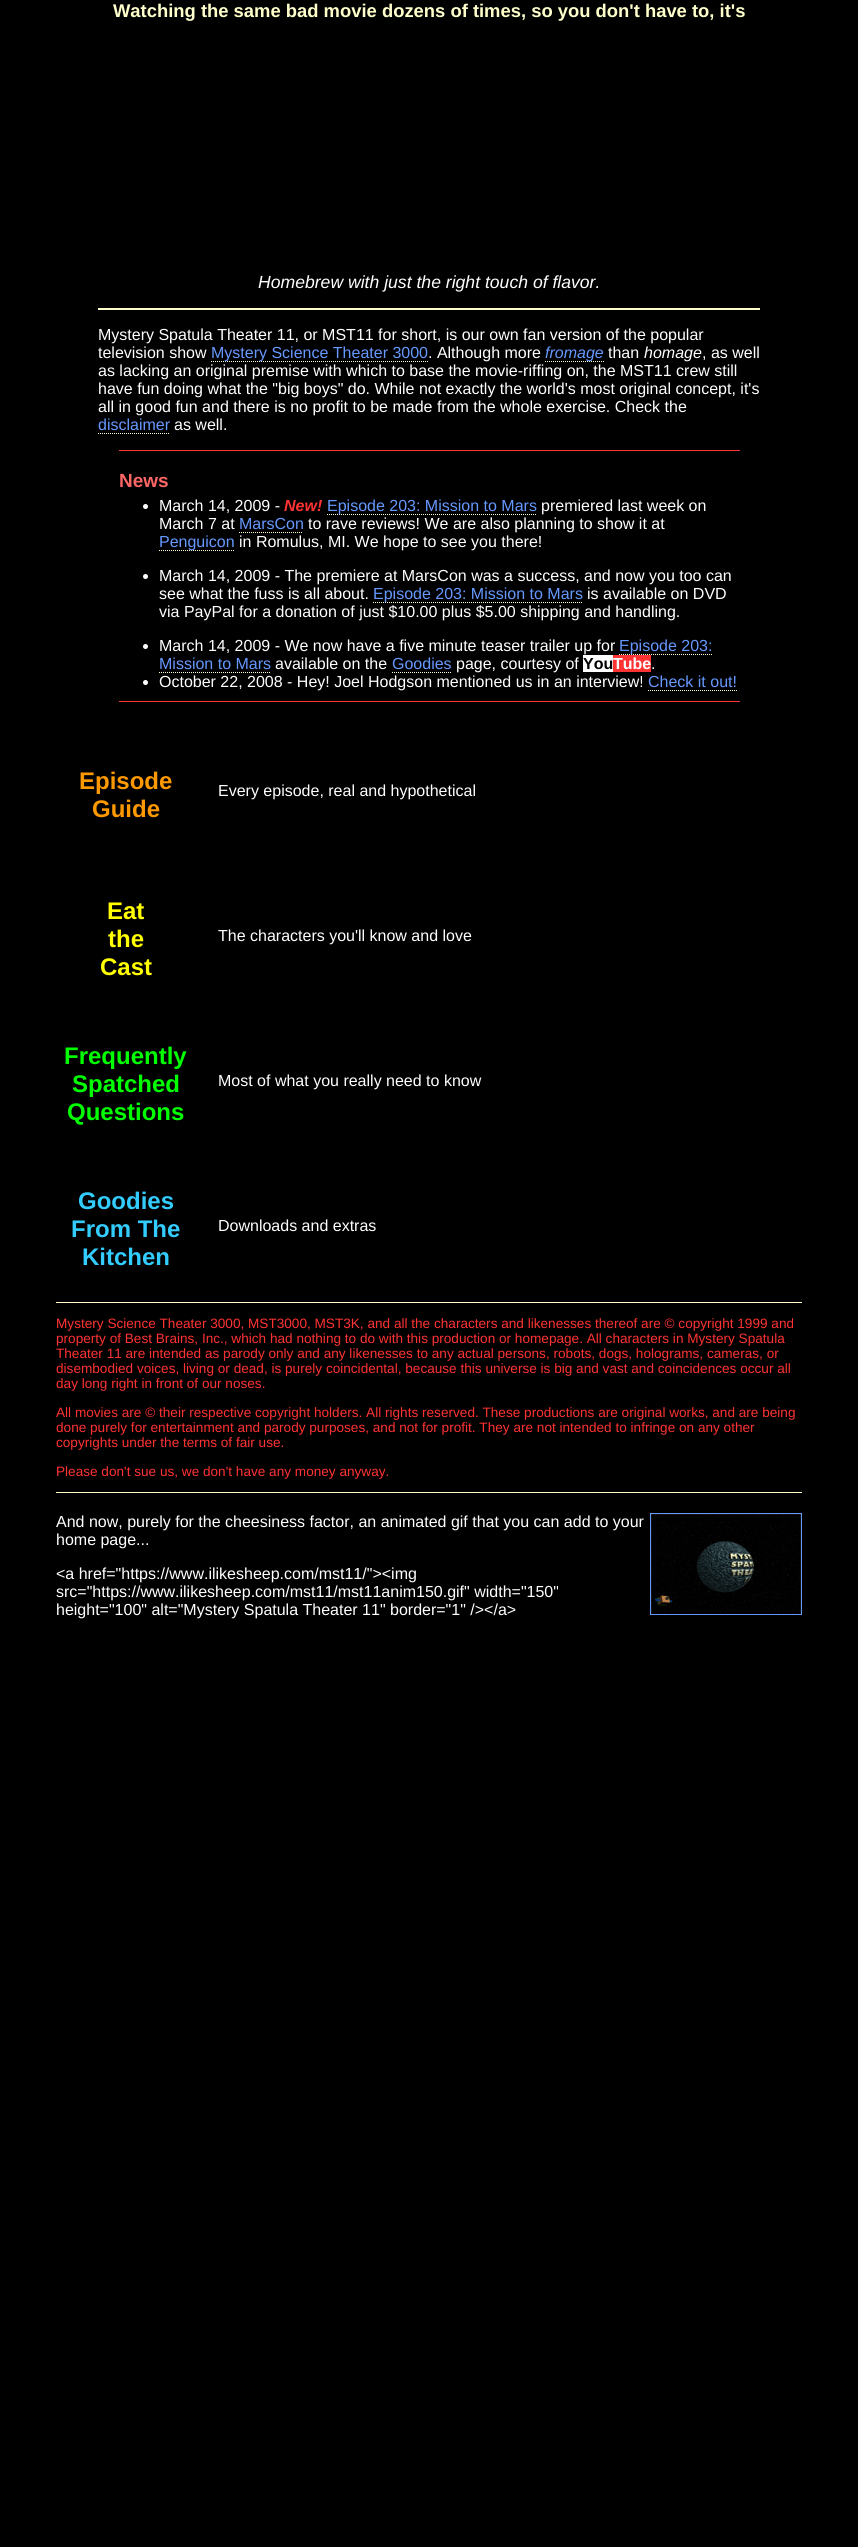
#include <cairo.h>
#include <math.h>
#include <stddef.h>


static void picture(cairo_t *cr, const char *path, double x, double y, double w, double h) {
    cairo_surface_t *image = cairo_image_surface_create_from_png(path);
    cairo_save(cr);
    cairo_set_source_surface(cr, image, x, y);
    cairo_rectangle(cr, x, y, w, h);
    cairo_fill(cr);
    cairo_restore(cr);
    cairo_surface_destroy(image);
}

int main(void) {
    cairo_surface_t *surface = cairo_image_surface_create(CAIRO_FORMAT_RGB24, 858, 2547);
    cairo_t *cr = cairo_create(surface);
    cairo_font_options_t *options = cairo_font_options_create();
    cairo_font_options_set_hint_metrics(options, CAIRO_HINT_METRICS_OFF);
    cairo_font_options_set_hint_style(options, CAIRO_HINT_STYLE_NONE);
    cairo_set_font_options(cr, options);
    cairo_set_miter_limit(cr, 4);
    cairo_set_source_rgb(cr, 0, 0, 0);
    cairo_paint(cr);
    cairo_select_font_face(cr, "Liberation Sans", CAIRO_FONT_SLANT_NORMAL, CAIRO_FONT_WEIGHT_BOLD);
    cairo_set_font_size(cr, 18.4);
    cairo_set_source_rgb(cr, 1, 1, 0.8);
    cairo_move_to(cr, 113, 17);
    cairo_show_text(cr, "Watching the same bad movie dozens of times, so you don't have to, it's");
    cairo_select_font_face(cr, "Liberation Sans", CAIRO_FONT_SLANT_ITALIC, CAIRO_FONT_WEIGHT_NORMAL);
    cairo_set_font_size(cr, 17.6);
    cairo_set_source_rgb(cr, 1, 1, 1);
    cairo_move_to(cr, 258, 288);
    cairo_show_text(cr, "Homebrew with just the right touch of flavor.");
    cairo_set_source_rgb(cr, 1, 1, 0.8);
    cairo_rectangle(cr, 98, 308, 662, 2);
    cairo_fill(cr);
    cairo_select_font_face(cr, "Liberation Sans", CAIRO_FONT_SLANT_NORMAL, CAIRO_FONT_WEIGHT_NORMAL);
    cairo_set_font_size(cr, 16);
    cairo_set_source_rgb(cr, 1, 1, 1);
    cairo_move_to(cr, 98, 340);
    cairo_show_text(cr, "Mystery Spatula Theater 11, or MST11 for short, is our own fan version of the popular");
    cairo_move_to(cr, 98, 358);
    cairo_show_text(cr, "television show");
    cairo_new_path(cr);
    cairo_move_to(cr, 211, 361.5);
    cairo_line_to(cr, 428, 361.5);
    cairo_set_source_rgb(cr, 1, 1, 0.8);
    cairo_set_line_width(cr, 1);
    cairo_set_dash(cr, (double[]){1, 1}, 2, 0);
    cairo_stroke(cr);
    cairo_set_source_rgb(cr, 0.4, 0.6, 1);
    cairo_move_to(cr, 211, 358);
    cairo_show_text(cr, "Mystery Science Theater 3000");
    cairo_set_source_rgb(cr, 1, 1, 1);
    cairo_move_to(cr, 428, 358);
    cairo_show_text(cr, ". Although more");
    cairo_new_path(cr);
    cairo_move_to(cr, 545, 361.5);
    cairo_line_to(cr, 604, 361.5);
    cairo_set_source_rgb(cr, 1, 1, 0.8);
    cairo_stroke(cr);
    cairo_select_font_face(cr, "Liberation Sans", CAIRO_FONT_SLANT_ITALIC, CAIRO_FONT_WEIGHT_NORMAL);
    cairo_set_source_rgb(cr, 0.4, 0.6, 1);
    cairo_move_to(cr, 545, 358);
    cairo_show_text(cr, "fromage");
    cairo_select_font_face(cr, "Liberation Sans", CAIRO_FONT_SLANT_NORMAL, CAIRO_FONT_WEIGHT_NORMAL);
    cairo_set_source_rgb(cr, 1, 1, 1);
    cairo_move_to(cr, 608, 358);
    cairo_show_text(cr, "than");
    cairo_select_font_face(cr, "Liberation Sans", CAIRO_FONT_SLANT_ITALIC, CAIRO_FONT_WEIGHT_NORMAL);
    cairo_move_to(cr, 644, 358);
    cairo_show_text(cr, "homage");
    cairo_select_font_face(cr, "Liberation Sans", CAIRO_FONT_SLANT_NORMAL, CAIRO_FONT_WEIGHT_NORMAL);
    cairo_move_to(cr, 702, 358);
    cairo_show_text(cr, ", as well");
    cairo_move_to(cr, 98, 376);
    cairo_show_text(cr, "as lacking an original premise with which to base the movie-riffing on, the MST11 crew still");
    cairo_move_to(cr, 98, 394);
    cairo_show_text(cr, "have fun doing what the \"big boys\" do. While not exactly the world's most original concept, it's");
    cairo_move_to(cr, 98, 412);
    cairo_show_text(cr, "all in good fun and there is no profit to be made from the whole exercise. Check the");
    cairo_set_source_rgb(cr, 0.4, 0.6, 1);
    cairo_move_to(cr, 98, 430);
    cairo_show_text(cr, "disclaimer");
    cairo_new_path(cr);
    cairo_move_to(cr, 98, 433.5);
    cairo_line_to(cr, 170, 433.5);
    cairo_set_source_rgb(cr, 1, 1, 0.8);
    cairo_stroke(cr);
    cairo_set_source_rgb(cr, 1, 1, 1);
    cairo_move_to(cr, 174, 430);
    cairo_show_text(cr, "as well.");
    cairo_set_source_rgb(cr, 1, 0.2, 0.2);
    cairo_rectangle(cr, 119, 450, 621, 1);
    cairo_fill(cr);
    cairo_rectangle(cr, 119, 701, 621, 1);
    cairo_fill(cr);
    cairo_select_font_face(cr, "Liberation Sans", CAIRO_FONT_SLANT_NORMAL, CAIRO_FONT_WEIGHT_BOLD);
    cairo_set_font_size(cr, 19);
    cairo_set_source_rgb(cr, 1, 0.4, 0.4);
    cairo_move_to(cr, 119, 487);
    cairo_show_text(cr, "News");
    cairo_set_source_rgb(cr, 1, 1, 1);
    cairo_new_path(cr);
    cairo_arc(cr, 145.5, 506.5, 2.5, 0, 2 * M_PI);
    cairo_fill(cr);
    cairo_select_font_face(cr, "Liberation Sans", CAIRO_FONT_SLANT_NORMAL, CAIRO_FONT_WEIGHT_NORMAL);
    cairo_set_font_size(cr, 16);
    cairo_move_to(cr, 159, 511);
    cairo_show_text(cr, "March 14, 2009 -");
    cairo_select_font_face(cr, "Liberation Sans", CAIRO_FONT_SLANT_ITALIC, CAIRO_FONT_WEIGHT_BOLD);
    cairo_set_source_rgb(cr, 1, 0.2, 0.2);
    cairo_move_to(cr, 284, 511);
    cairo_show_text(cr, "New!");
    cairo_new_path(cr);
    cairo_move_to(cr, 327, 514.5);
    cairo_line_to(cr, 536, 514.5);
    cairo_set_source_rgb(cr, 1, 1, 0.8);
    cairo_stroke(cr);
    cairo_select_font_face(cr, "Liberation Sans", CAIRO_FONT_SLANT_NORMAL, CAIRO_FONT_WEIGHT_NORMAL);
    cairo_set_source_rgb(cr, 0.4, 0.6, 1);
    cairo_move_to(cr, 327, 511);
    cairo_show_text(cr, "Episode 203: Mission to Mars");
    cairo_set_source_rgb(cr, 1, 1, 1);
    cairo_move_to(cr, 541, 511);
    cairo_show_text(cr, "premiered last week on");
    cairo_move_to(cr, 159, 529);
    cairo_show_text(cr, "March 7 at");
    cairo_set_source_rgb(cr, 0.4, 0.6, 1);
    cairo_move_to(cr, 239, 529);
    cairo_show_text(cr, "MarsCon");
    cairo_new_path(cr);
    cairo_move_to(cr, 239, 532.5);
    cairo_line_to(cr, 303, 532.5);
    cairo_set_source_rgb(cr, 1, 1, 0.8);
    cairo_stroke(cr);
    cairo_set_source_rgb(cr, 1, 1, 1);
    cairo_move_to(cr, 308, 529);
    cairo_show_text(cr, "to rave reviews! We are also planning to show it at");
    cairo_new_path(cr);
    cairo_move_to(cr, 159, 550.5);
    cairo_line_to(cr, 234, 550.5);
    cairo_set_source_rgb(cr, 1, 1, 0.8);
    cairo_stroke(cr);
    cairo_set_source_rgb(cr, 0.4, 0.6, 1);
    cairo_move_to(cr, 159, 547);
    cairo_show_text(cr, "Penguicon");
    cairo_set_source_rgb(cr, 1, 1, 1);
    cairo_move_to(cr, 239, 547);
    cairo_show_text(cr, "in Romulus, MI. We hope to see you there!");
    cairo_new_path(cr);
    cairo_arc(cr, 145.5, 576.5, 2.5, 0, 2 * M_PI);
    cairo_fill(cr);
    cairo_move_to(cr, 159, 581);
    cairo_show_text(cr, "March 14, 2009 - The premiere at MarsCon was a success, and now you too can");
    cairo_move_to(cr, 159, 599);
    cairo_show_text(cr, "see what the fuss is all about.");
    cairo_new_path(cr);
    cairo_move_to(cr, 373, 602.5);
    cairo_line_to(cr, 583, 602.5);
    cairo_set_source_rgb(cr, 1, 1, 0.8);
    cairo_stroke(cr);
    cairo_set_source_rgb(cr, 0.4, 0.6, 1);
    cairo_move_to(cr, 373, 599);
    cairo_show_text(cr, "Episode 203: Mission to Mars");
    cairo_set_source_rgb(cr, 1, 1, 1);
    cairo_move_to(cr, 587, 599);
    cairo_show_text(cr, "is available on DVD");
    cairo_move_to(cr, 159, 617);
    cairo_show_text(cr, "via PayPal for a donation of just $10.00 plus $5.00 shipping and handling.");
    cairo_new_path(cr);
    cairo_arc(cr, 145.5, 646.5, 2.5, 0, 2 * M_PI);
    cairo_fill(cr);
    cairo_move_to(cr, 159, 651);
    cairo_show_text(cr, "March 14, 2009 - We now have a five minute teaser trailer up for");
    cairo_new_path(cr);
    cairo_move_to(cr, 619, 654.5);
    cairo_line_to(cr, 713, 654.5);
    cairo_set_source_rgb(cr, 1, 1, 0.8);
    cairo_stroke(cr);
    cairo_set_source_rgb(cr, 0.4, 0.6, 1);
    cairo_move_to(cr, 619, 651);
    cairo_show_text(cr, "Episode 203:");
    cairo_move_to(cr, 159, 669);
    cairo_show_text(cr, "Mission to Mars");
    cairo_new_path(cr);
    cairo_move_to(cr, 159, 672.5);
    cairo_line_to(cr, 271, 672.5);
    cairo_set_source_rgb(cr, 1, 1, 0.8);
    cairo_stroke(cr);
    cairo_set_source_rgb(cr, 1, 1, 1);
    cairo_move_to(cr, 275, 669);
    cairo_show_text(cr, "available on the");
    cairo_set_source_rgb(cr, 0.4, 0.6, 1);
    cairo_move_to(cr, 392, 669);
    cairo_show_text(cr, "Goodies");
    cairo_new_path(cr);
    cairo_move_to(cr, 392, 672.5);
    cairo_line_to(cr, 451, 672.5);
    cairo_set_source_rgb(cr, 1, 1, 0.8);
    cairo_stroke(cr);
    cairo_set_source_rgb(cr, 1, 1, 1);
    cairo_move_to(cr, 456, 669);
    cairo_show_text(cr, "page, courtesy of");
    cairo_rectangle(cr, 583, 655, 30, 17);
    cairo_fill(cr);
    cairo_select_font_face(cr, "Liberation Sans", CAIRO_FONT_SLANT_NORMAL, CAIRO_FONT_WEIGHT_BOLD);
    cairo_set_source_rgb(cr, 0, 0, 0);
    cairo_move_to(cr, 583, 669);
    cairo_show_text(cr, "You");
    cairo_set_source_rgb(cr, 1, 0.2, 0.2);
    cairo_rectangle(cr, 613, 655, 38, 17);
    cairo_fill(cr);
    cairo_set_source_rgb(cr, 1, 1, 1);
    cairo_move_to(cr, 613, 669);
    cairo_show_text(cr, "Tube");
    cairo_select_font_face(cr, "Liberation Sans", CAIRO_FONT_SLANT_NORMAL, CAIRO_FONT_WEIGHT_NORMAL);
    cairo_move_to(cr, 651, 669);
    cairo_show_text(cr, ".");
    cairo_new_path(cr);
    cairo_arc(cr, 145.5, 682.5, 2.5, 0, 2 * M_PI);
    cairo_fill(cr);
    cairo_move_to(cr, 159, 687);
    cairo_show_text(cr, "October 22, 2008 - Hey! Joel Hodgson mentioned us in an interview!");
    cairo_set_source_rgb(cr, 0.4, 0.6, 1);
    cairo_move_to(cr, 648, 687);
    cairo_show_text(cr, "Check it out!");
    cairo_new_path(cr);
    cairo_move_to(cr, 648, 690.5);
    cairo_line_to(cr, 737, 690.5);
    cairo_set_source_rgb(cr, 1, 1, 0.8);
    cairo_stroke(cr);
    cairo_select_font_face(cr, "Liberation Sans", CAIRO_FONT_SLANT_NORMAL, CAIRO_FONT_WEIGHT_BOLD);
    cairo_set_font_size(cr, 24);
    cairo_set_source_rgb(cr, 1, 0.6, 0);
    cairo_move_to(cr, 79, 789);
    cairo_show_text(cr, "Episode");
    cairo_move_to(cr, 92, 817);
    cairo_show_text(cr, "Guide");
    cairo_select_font_face(cr, "Liberation Sans", CAIRO_FONT_SLANT_NORMAL, CAIRO_FONT_WEIGHT_NORMAL);
    cairo_set_font_size(cr, 16);
    cairo_set_source_rgb(cr, 1, 1, 1);
    cairo_move_to(cr, 218, 796);
    cairo_show_text(cr, "Every episode, real and hypothetical");
    cairo_select_font_face(cr, "Liberation Sans", CAIRO_FONT_SLANT_NORMAL, CAIRO_FONT_WEIGHT_BOLD);
    cairo_set_font_size(cr, 24);
    cairo_set_source_rgb(cr, 1, 1, 0);
    cairo_move_to(cr, 107, 919);
    cairo_show_text(cr, "Eat");
    cairo_move_to(cr, 108, 947);
    cairo_show_text(cr, "the");
    cairo_move_to(cr, 100, 975);
    cairo_show_text(cr, "Cast");
    cairo_select_font_face(cr, "Liberation Sans", CAIRO_FONT_SLANT_NORMAL, CAIRO_FONT_WEIGHT_NORMAL);
    cairo_set_font_size(cr, 16);
    cairo_set_source_rgb(cr, 1, 1, 1);
    cairo_move_to(cr, 218, 941);
    cairo_show_text(cr, "The characters you'll know and love");
    cairo_select_font_face(cr, "Liberation Sans", CAIRO_FONT_SLANT_NORMAL, CAIRO_FONT_WEIGHT_BOLD);
    cairo_set_font_size(cr, 24);
    cairo_set_source_rgb(cr, 0, 1, 0);
    cairo_move_to(cr, 64, 1064);
    cairo_show_text(cr, "Frequently");
    cairo_move_to(cr, 72, 1092);
    cairo_show_text(cr, "Spatched");
    cairo_move_to(cr, 67, 1120);
    cairo_show_text(cr, "Questions");
    cairo_select_font_face(cr, "Liberation Sans", CAIRO_FONT_SLANT_NORMAL, CAIRO_FONT_WEIGHT_NORMAL);
    cairo_set_font_size(cr, 16);
    cairo_set_source_rgb(cr, 1, 1, 1);
    cairo_move_to(cr, 218, 1086);
    cairo_show_text(cr, "Most of what you really need to know");
    cairo_select_font_face(cr, "Liberation Sans", CAIRO_FONT_SLANT_NORMAL, CAIRO_FONT_WEIGHT_BOLD);
    cairo_set_font_size(cr, 24);
    cairo_set_source_rgb(cr, 0.2, 0.8, 1);
    cairo_move_to(cr, 78, 1209);
    cairo_show_text(cr, "Goodies");
    cairo_move_to(cr, 71, 1237);
    cairo_show_text(cr, "From The");
    cairo_move_to(cr, 82, 1265);
    cairo_show_text(cr, "Kitchen");
    cairo_select_font_face(cr, "Liberation Sans", CAIRO_FONT_SLANT_NORMAL, CAIRO_FONT_WEIGHT_NORMAL);
    cairo_set_font_size(cr, 16);
    cairo_set_source_rgb(cr, 1, 1, 1);
    cairo_move_to(cr, 218, 1231);
    cairo_show_text(cr, "Downloads and extras");
    cairo_set_source_rgb(cr, 1, 1, 0.8);
    cairo_rectangle(cr, 56, 1302, 746, 1);
    cairo_fill(cr);
    cairo_rectangle(cr, 56, 1492, 746, 1);
    cairo_fill(cr);
    cairo_set_font_size(cr, 13.6);
    cairo_set_source_rgb(cr, 1, 0.2, 0.2);
    cairo_move_to(cr, 56, 1328);
    cairo_show_text(cr, "Mystery Science Theater 3000, MST3000, MST3K, and all the characters and likenesses thereof are © copyright 1999 and");
    cairo_move_to(cr, 56, 1343);
    cairo_show_text(cr, "property of Best Brains, Inc., which had nothing to do with this production or homepage. All characters in Mystery Spatula");
    cairo_move_to(cr, 56, 1358);
    cairo_show_text(cr, "Theater 11 are intended as parody only and any likenesses to any actual persons, robots, dogs, holograms, cameras, or");
    cairo_move_to(cr, 56, 1373);
    cairo_show_text(cr, "disembodied voices, living or dead, is purely coincidental, because this universe is big and vast and coincidences occur all");
    cairo_move_to(cr, 56, 1388);
    cairo_show_text(cr, "day long right in front of our noses.");
    cairo_move_to(cr, 56, 1417);
    cairo_show_text(cr, "All movies are © their respective copyright holders. All rights reserved. These productions are original works, and are being");
    cairo_move_to(cr, 56, 1432);
    cairo_show_text(cr, "done purely for entertainment and parody purposes, and not for profit. They are not intended to infringe on any other");
    cairo_move_to(cr, 56, 1447);
    cairo_show_text(cr, "copyrights under the terms of fair use.");
    cairo_move_to(cr, 56, 1476);
    cairo_show_text(cr, "Please don't sue us, we don't have any money anyway.");
    cairo_set_font_size(cr, 16);
    cairo_set_source_rgb(cr, 1, 1, 1);
    cairo_move_to(cr, 56, 1527);
    cairo_show_text(cr, "And now, purely for the cheesiness factor, an animated gif that you can add to your");
    cairo_rectangle(cr, 650.5, 1513.5, 151, 101);
    cairo_set_source_rgb(cr, 0.4, 0.6, 1);
    cairo_set_dash(cr, NULL, 0, 0);
    cairo_stroke(cr);
    picture(cr, "img1.png", 651, 1514, 150, 100);
    cairo_set_source_rgb(cr, 1, 1, 1);
    cairo_move_to(cr, 56, 1545);
    cairo_show_text(cr, "home page...");
    cairo_move_to(cr, 56, 1579);
    cairo_show_text(cr, "<a href=\"https://www.ilikesheep.com/mst11/\"><img");
    cairo_move_to(cr, 56, 1597);
    cairo_show_text(cr, "src=\"https://www.ilikesheep.com/mst11/mst11anim150.gif\" width=\"150\"");
    cairo_move_to(cr, 56, 1615);
    cairo_show_text(cr, "height=\"100\" alt=\"Mystery Spatula Theater 11\" border=\"1\" /></a>");
    cairo_surface_write_to_png(surface, "page.png");
    cairo_font_options_destroy(options);
    cairo_destroy(cr);
    cairo_surface_destroy(surface);
    return 0;
}
